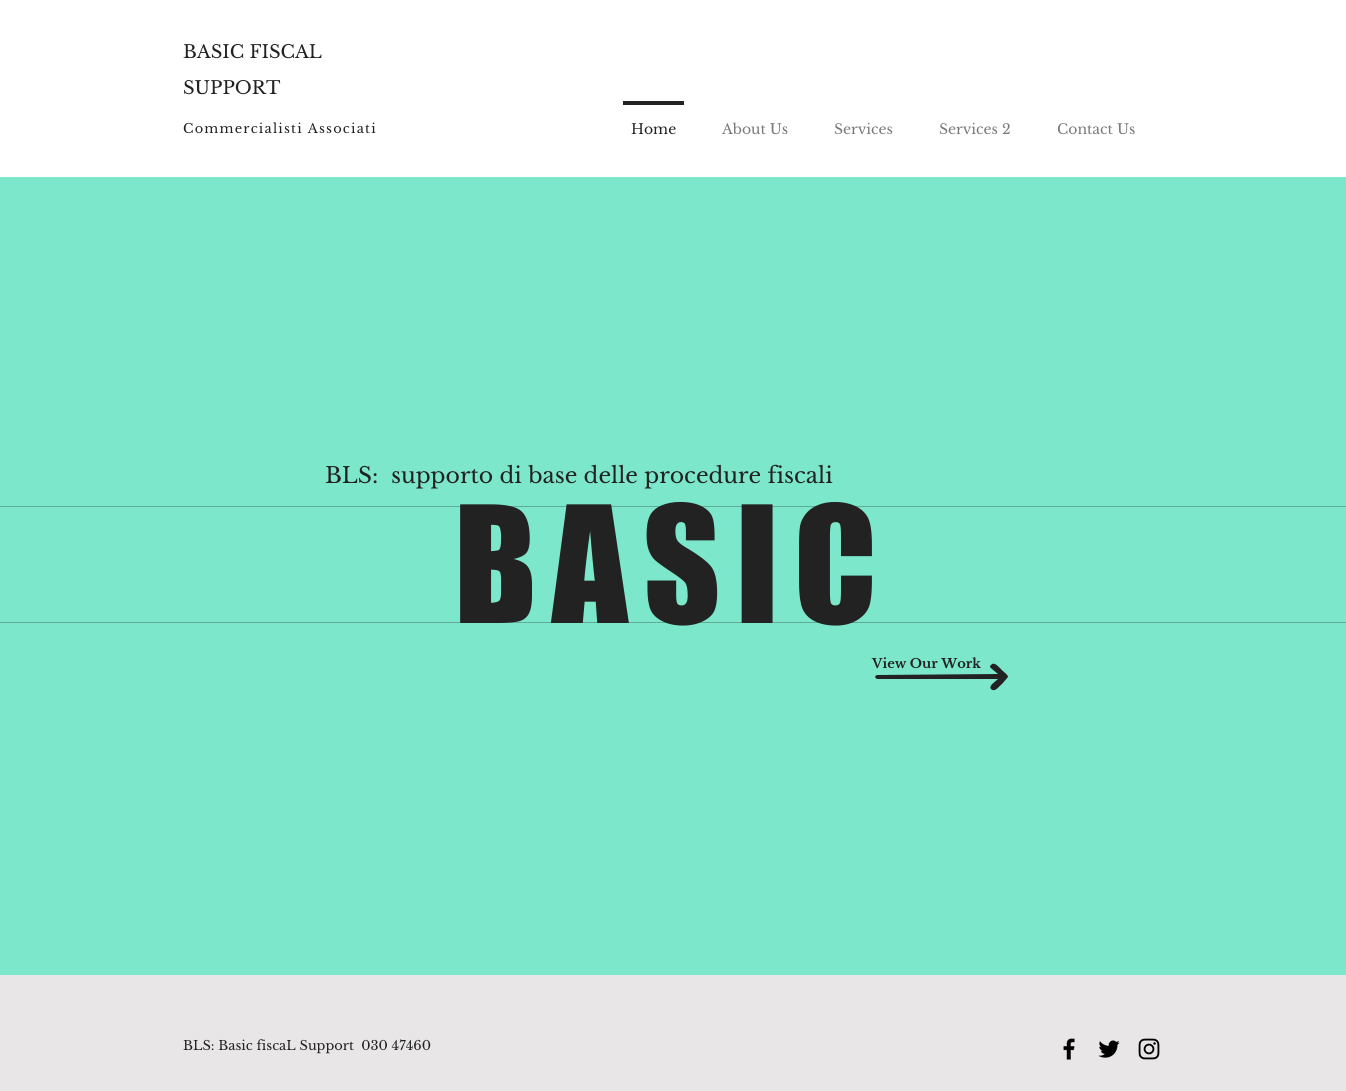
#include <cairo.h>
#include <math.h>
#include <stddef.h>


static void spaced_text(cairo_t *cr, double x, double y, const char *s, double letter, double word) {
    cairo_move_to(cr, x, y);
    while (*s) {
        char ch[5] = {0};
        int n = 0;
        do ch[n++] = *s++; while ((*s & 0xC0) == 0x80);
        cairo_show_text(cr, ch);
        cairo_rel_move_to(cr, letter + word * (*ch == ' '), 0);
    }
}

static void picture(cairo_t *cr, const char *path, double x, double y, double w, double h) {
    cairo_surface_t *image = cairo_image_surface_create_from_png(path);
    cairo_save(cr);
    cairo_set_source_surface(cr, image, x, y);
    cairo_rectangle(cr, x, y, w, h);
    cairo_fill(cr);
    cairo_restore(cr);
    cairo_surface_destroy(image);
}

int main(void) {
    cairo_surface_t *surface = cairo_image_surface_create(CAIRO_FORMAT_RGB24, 1346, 1091);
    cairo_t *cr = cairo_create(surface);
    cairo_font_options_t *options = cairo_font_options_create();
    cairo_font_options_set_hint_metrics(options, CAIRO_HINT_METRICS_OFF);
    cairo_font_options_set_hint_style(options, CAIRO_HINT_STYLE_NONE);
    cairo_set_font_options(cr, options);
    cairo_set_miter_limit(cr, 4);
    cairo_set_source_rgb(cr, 1, 1, 1);
    cairo_paint(cr);
    cairo_select_font_face(cr, "Libre Baskerville", CAIRO_FONT_SLANT_NORMAL, CAIRO_FONT_WEIGHT_NORMAL);
    cairo_set_font_size(cr, 18);
    cairo_set_source_rgb(cr, 0.133, 0.133, 0.133);
    cairo_move_to(cr, 183, 58);
    cairo_show_text(cr, "BASIC FISCAL");
    cairo_move_to(cr, 183, 94);
    cairo_show_text(cr, "SUPPORT");
    cairo_set_font_size(cr, 13);
    spaced_text(cr, 183, 133, "Commercialisti Associati", 1.2, 0);
    cairo_rectangle(cr, 623, 101, 61, 4);
    cairo_fill(cr);
    cairo_set_font_size(cr, 14);
    cairo_move_to(cr, 631, 134);
    cairo_show_text(cr, "Home");
    cairo_set_source_rgb(cr, 0.478, 0.478, 0.478);
    cairo_move_to(cr, 722, 134);
    cairo_show_text(cr, "About Us");
    cairo_move_to(cr, 834, 134);
    cairo_show_text(cr, "Services");
    cairo_move_to(cr, 939, 134);
    cairo_show_text(cr, "Services 2");
    cairo_move_to(cr, 1057, 134);
    cairo_show_text(cr, "Contact Us");
    cairo_set_source_rgb(cr, 0.486, 0.906, 0.792);
    cairo_rectangle(cr, 0, 177, 1346, 798);
    cairo_fill(cr);
    cairo_set_font_size(cr, 22);
    cairo_set_source_rgb(cr, 0.133, 0.133, 0.133);
    cairo_move_to(cr, 325, 483);
    cairo_show_text(cr, "BLS:  supporto di base delle procedure fiscali");
    cairo_select_font_face(cr, "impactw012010", CAIRO_FONT_SLANT_NORMAL, CAIRO_FONT_WEIGHT_NORMAL);
    cairo_set_font_size(cr, 150);
    spaced_text(cr, 454, 623, "BASIC", 15, 0);
    cairo_set_source_rgba(cr, 0.133, 0.133, 0.133, 0.3);
    cairo_rectangle(cr, 0, 506, 1346, 1);
    cairo_fill(cr);
    cairo_rectangle(cr, 0, 622, 1346, 1);
    cairo_fill(cr);
    cairo_select_font_face(cr, "Libre Baskerville", CAIRO_FONT_SLANT_NORMAL, CAIRO_FONT_WEIGHT_BOLD);
    cairo_set_font_size(cr, 13);
    cairo_set_source_rgb(cr, 0.133, 0.133, 0.133);
    cairo_move_to(cr, 872, 668);
    cairo_show_text(cr, "View Our Work");
    cairo_new_path(cr);
    cairo_move_to(cr, 878, 679);
    cairo_line_to(cr, 998, 679);
    cairo_curve_to(cr, 996, 681, 988, 686, 991, 689);
    cairo_curve_to(cr, 995, 693, 999, 686, 1002, 684);
    cairo_line_to(cr, 1008, 677);
    cairo_curve_to(cr, 1008, 675, 1005, 673, 1004, 672);
    cairo_curve_to(cr, 1001, 670, 996, 662, 992, 664);
    cairo_line_to(cr, 990, 666);
    cairo_curve_to(cr, 990, 668, 991, 668, 992, 669);
    cairo_line_to(cr, 998, 674);
    cairo_line_to(cr, 877, 675);
    cairo_curve_to(cr, 874, 676, 875, 679, 878, 679);
    cairo_close_path(cr);
    cairo_fill(cr);
    cairo_set_source_rgb(cr, 0.91, 0.902, 0.902);
    cairo_rectangle(cr, 0, 975, 1346, 116);
    cairo_fill(cr);
    cairo_select_font_face(cr, "Libre Baskerville", CAIRO_FONT_SLANT_NORMAL, CAIRO_FONT_WEIGHT_NORMAL);
    cairo_set_source_rgb(cr, 0.133, 0.133, 0.133);
    cairo_move_to(cr, 183, 1050);
    cairo_show_text(cr, "BLS: Basic fiscaL Support  030 47460");
    picture(cr, "img1.png", 1063, 1038, 12, 22);
    picture(cr, "img2.png", 1098, 1040, 22, 18);
    picture(cr, "img3.png", 1138, 1038, 22, 22);
    cairo_surface_write_to_png(surface, "page.png");
    cairo_font_options_destroy(options);
    cairo_destroy(cr);
    cairo_surface_destroy(surface);
    return 0;
}
